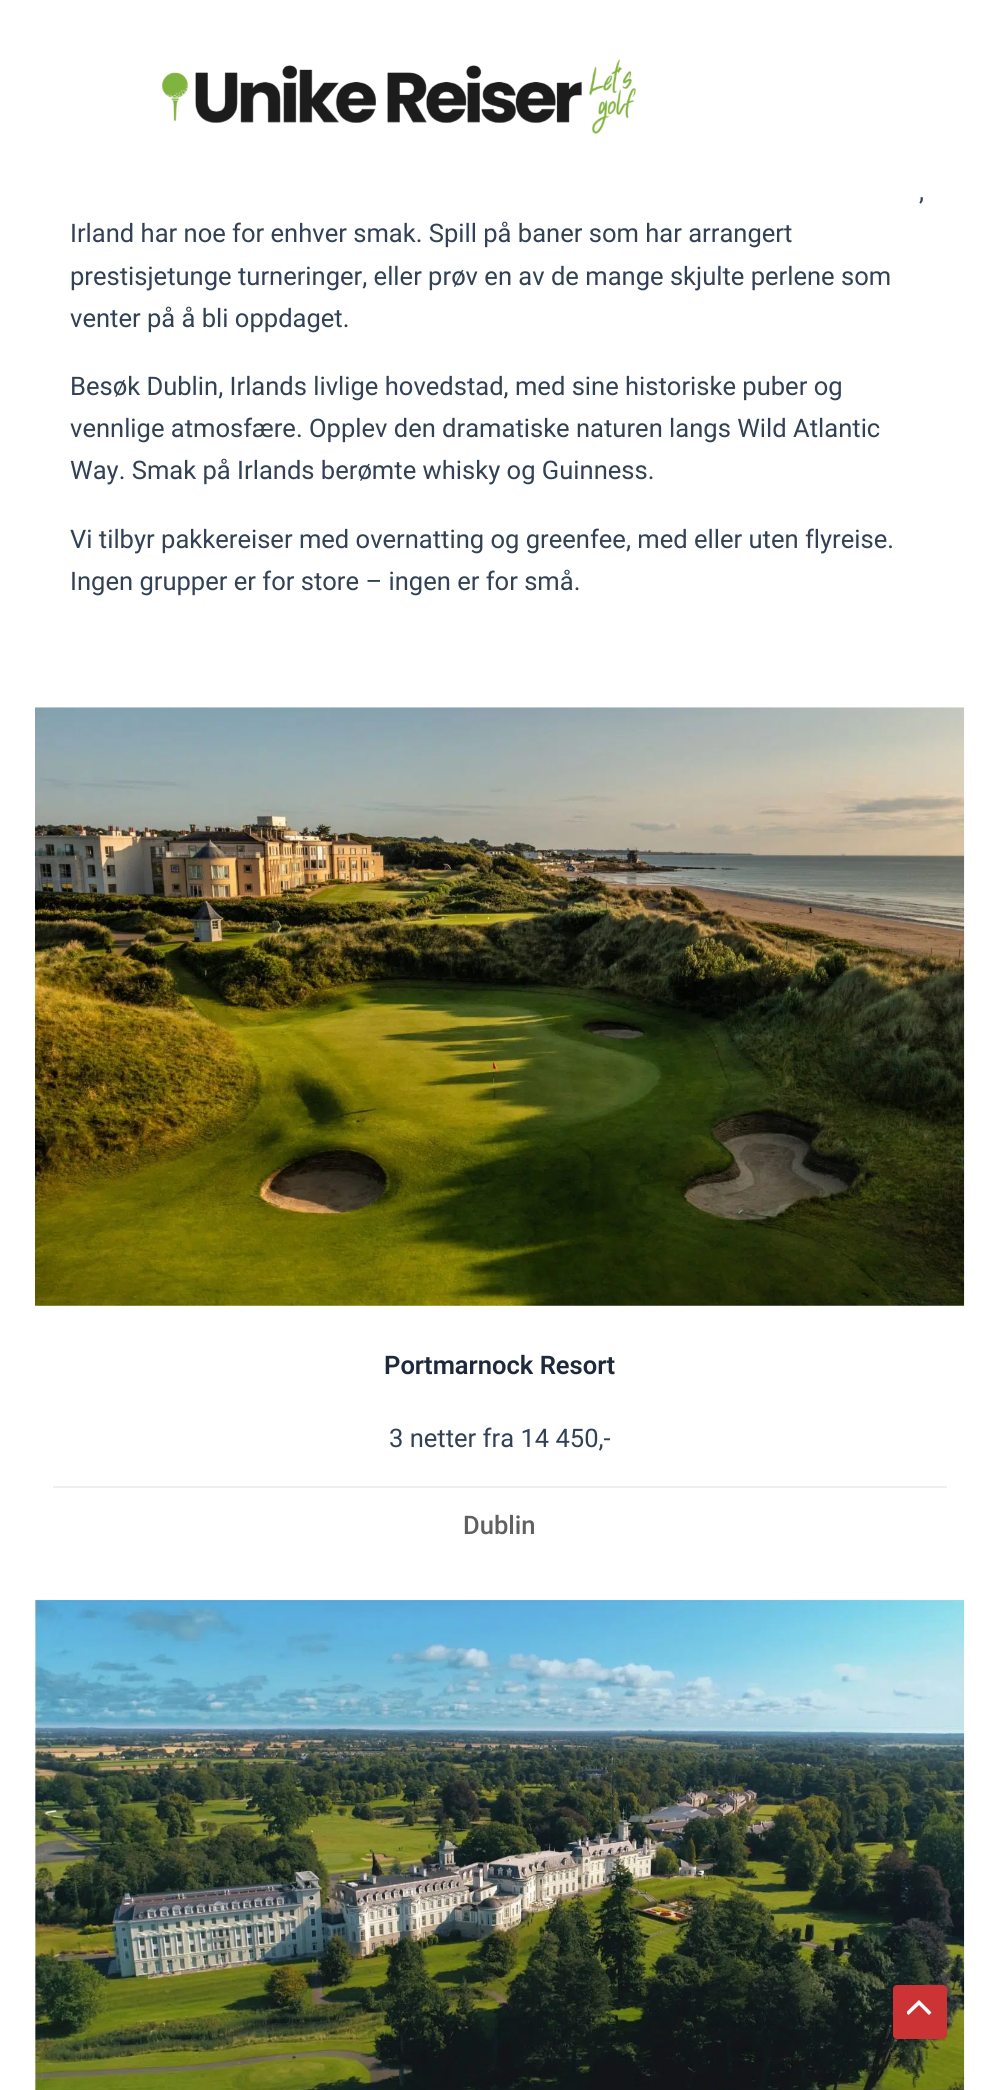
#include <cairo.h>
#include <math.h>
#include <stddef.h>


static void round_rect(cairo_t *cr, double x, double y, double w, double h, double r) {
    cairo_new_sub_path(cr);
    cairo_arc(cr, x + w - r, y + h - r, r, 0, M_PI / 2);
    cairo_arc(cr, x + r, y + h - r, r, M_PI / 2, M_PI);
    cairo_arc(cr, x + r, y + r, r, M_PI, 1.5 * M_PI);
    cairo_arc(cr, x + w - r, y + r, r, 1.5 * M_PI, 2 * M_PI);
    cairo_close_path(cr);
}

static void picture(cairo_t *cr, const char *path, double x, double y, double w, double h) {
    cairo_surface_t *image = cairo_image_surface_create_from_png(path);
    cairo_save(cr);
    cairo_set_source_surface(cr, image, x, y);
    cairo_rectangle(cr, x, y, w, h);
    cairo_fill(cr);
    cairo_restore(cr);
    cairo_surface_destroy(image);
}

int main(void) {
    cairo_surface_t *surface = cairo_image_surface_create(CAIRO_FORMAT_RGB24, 999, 2090);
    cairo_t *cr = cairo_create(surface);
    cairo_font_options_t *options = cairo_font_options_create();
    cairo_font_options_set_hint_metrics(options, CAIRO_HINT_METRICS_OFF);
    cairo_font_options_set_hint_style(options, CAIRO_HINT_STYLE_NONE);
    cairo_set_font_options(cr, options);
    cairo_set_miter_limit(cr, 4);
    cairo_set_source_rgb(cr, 1, 1, 1);
    cairo_paint(cr);
    picture(cr, "img1.png", 161, 59, 475, 75);
    cairo_select_font_face(cr, "Roboto", CAIRO_FONT_SLANT_NORMAL, CAIRO_FONT_WEIGHT_NORMAL);
    cairo_set_font_size(cr, 25.55);
    cairo_set_source_rgb(cr, 0.2, 0.255, 0.333);
    cairo_move_to(cr, 919, 200);
    cairo_show_text(cr, ",");
    cairo_move_to(cr, 70, 242);
    cairo_show_text(cr, "Irland har noe for enhver smak. Spill på baner som har arrangert");
    cairo_move_to(cr, 70, 285);
    cairo_show_text(cr, "prestisjetunge turneringer, eller prøv en av de mange skjulte perlene som");
    cairo_move_to(cr, 70, 327);
    cairo_show_text(cr, "venter på å bli oppdaget.");
    cairo_move_to(cr, 70, 395);
    cairo_show_text(cr, "Besøk Dublin, Irlands livlige hovedstad, med sine historiske puber og");
    cairo_move_to(cr, 70, 437);
    cairo_show_text(cr, "vennlige atmosfære. Opplev den dramatiske naturen langs Wild Atlantic");
    cairo_move_to(cr, 70, 479);
    cairo_show_text(cr, "Way. Smak på Irlands berømte whisky og Guinness.");
    cairo_move_to(cr, 70, 548);
    cairo_show_text(cr, "Vi tilbyr pakkereiser med overnatting og greenfee, med eller uten flyreise.");
    cairo_move_to(cr, 70, 590);
    cairo_show_text(cr, "Ingen grupper er for store – ingen er for små.");
    picture(cr, "img2.png", 35, 707, 930, 599);
    cairo_select_font_face(cr, "Roboto SemiBold", CAIRO_FONT_SLANT_NORMAL, CAIRO_FONT_WEIGHT_NORMAL);
    cairo_set_source_rgb(cr, 0.118, 0.161, 0.231);
    cairo_move_to(cr, 384, 1374);
    cairo_show_text(cr, "Portmarnock Resort");
    cairo_select_font_face(cr, "Roboto", CAIRO_FONT_SLANT_NORMAL, CAIRO_FONT_WEIGHT_NORMAL);
    cairo_set_source_rgb(cr, 0.2, 0.255, 0.333);
    cairo_move_to(cr, 389, 1447);
    cairo_show_text(cr, "3 netter fra 14 450,-");
    cairo_set_source_rgb(cr, 0.933, 0.933, 0.933);
    cairo_rectangle(cr, 53, 1486, 894, 2);
    cairo_fill(cr);
    cairo_select_font_face(cr, "Roboto Medium", CAIRO_FONT_SLANT_NORMAL, CAIRO_FONT_WEIGHT_NORMAL);
    cairo_set_source_rgb(cr, 0.376, 0.376, 0.376);
    cairo_move_to(cr, 463, 1534);
    cairo_show_text(cr, "Dublin");
    picture(cr, "img3.png", 35, 1599, 930, 491);
    cairo_set_source_rgb(cr, 0.796, 0.2, 0.204);
    round_rect(cr, 893, 1985, 54, 54, 4);
    cairo_fill(cr);
    cairo_save(cr);
    cairo_rectangle(cr, 907, 1997, 26, 21);
    cairo_clip(cr);
    cairo_set_source_rgb(cr, 1, 1, 1);
    cairo_new_path(cr);
    cairo_move_to(cr, 931.5, 2012.5);
    cairo_line_to(cr, 919, 2000);
    cairo_line_to(cr, 906, 2012.5);
    cairo_line_to(cr, 908.5, 2015);
    cairo_line_to(cr, 919, 2005);
    cairo_line_to(cr, 929, 2015);
    cairo_close_path(cr);
    cairo_fill(cr);
    cairo_restore(cr);
    cairo_surface_write_to_png(surface, "page.png");
    cairo_font_options_destroy(options);
    cairo_destroy(cr);
    cairo_surface_destroy(surface);
    return 0;
}
